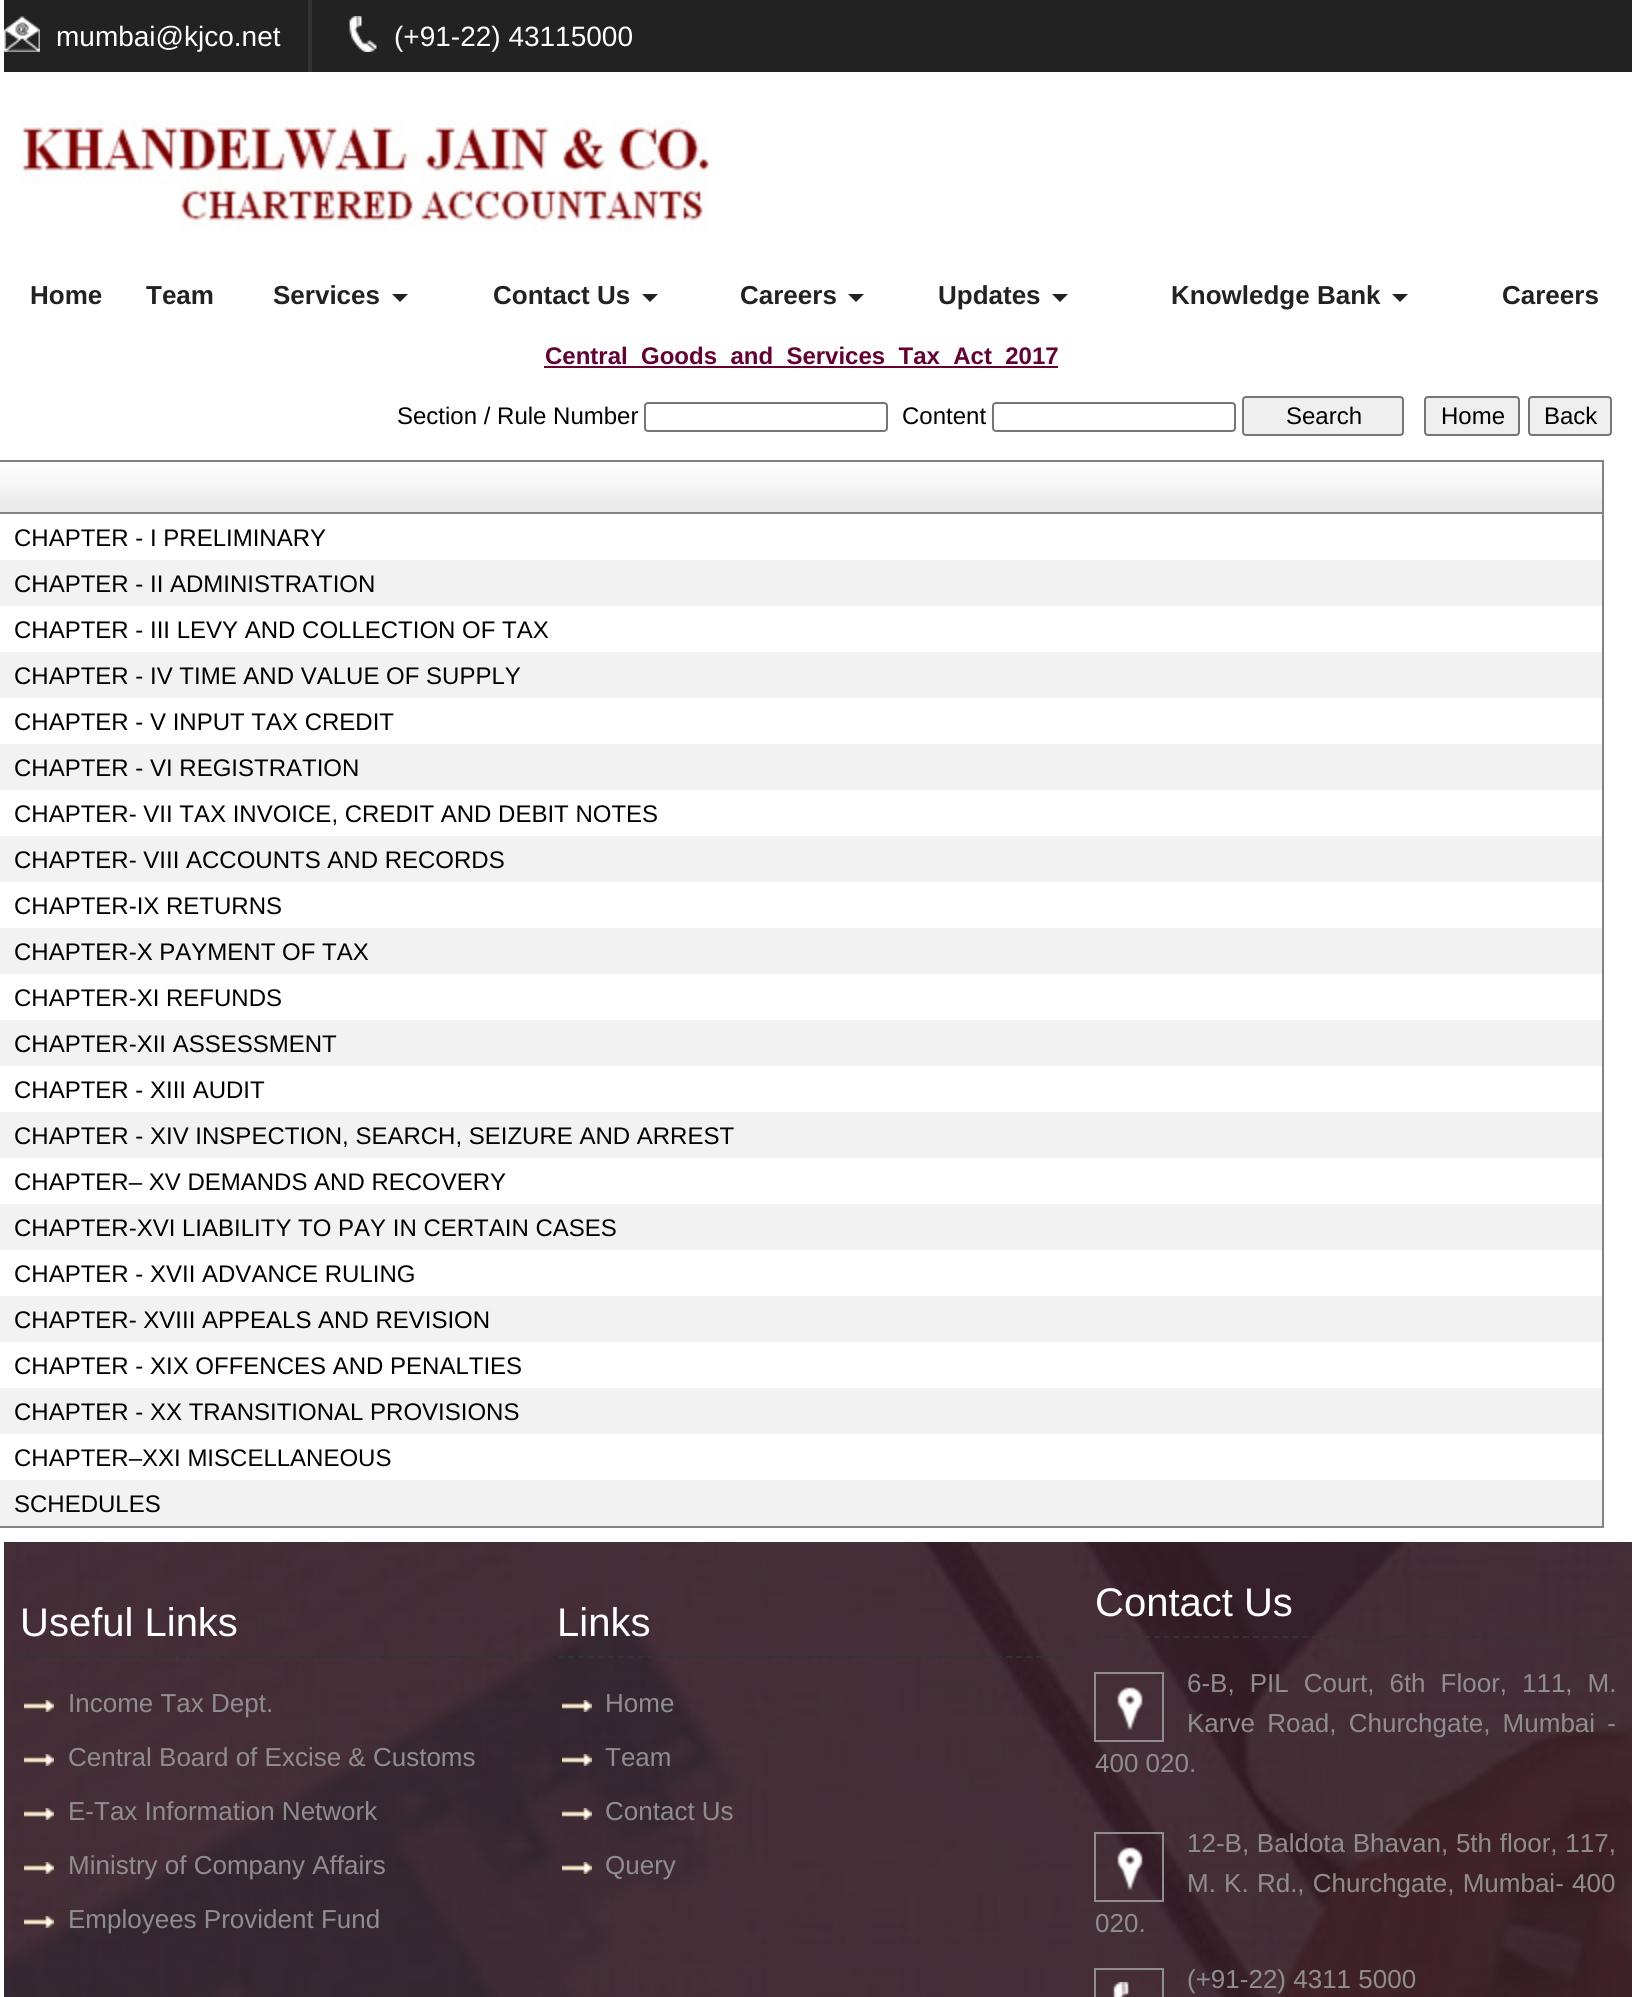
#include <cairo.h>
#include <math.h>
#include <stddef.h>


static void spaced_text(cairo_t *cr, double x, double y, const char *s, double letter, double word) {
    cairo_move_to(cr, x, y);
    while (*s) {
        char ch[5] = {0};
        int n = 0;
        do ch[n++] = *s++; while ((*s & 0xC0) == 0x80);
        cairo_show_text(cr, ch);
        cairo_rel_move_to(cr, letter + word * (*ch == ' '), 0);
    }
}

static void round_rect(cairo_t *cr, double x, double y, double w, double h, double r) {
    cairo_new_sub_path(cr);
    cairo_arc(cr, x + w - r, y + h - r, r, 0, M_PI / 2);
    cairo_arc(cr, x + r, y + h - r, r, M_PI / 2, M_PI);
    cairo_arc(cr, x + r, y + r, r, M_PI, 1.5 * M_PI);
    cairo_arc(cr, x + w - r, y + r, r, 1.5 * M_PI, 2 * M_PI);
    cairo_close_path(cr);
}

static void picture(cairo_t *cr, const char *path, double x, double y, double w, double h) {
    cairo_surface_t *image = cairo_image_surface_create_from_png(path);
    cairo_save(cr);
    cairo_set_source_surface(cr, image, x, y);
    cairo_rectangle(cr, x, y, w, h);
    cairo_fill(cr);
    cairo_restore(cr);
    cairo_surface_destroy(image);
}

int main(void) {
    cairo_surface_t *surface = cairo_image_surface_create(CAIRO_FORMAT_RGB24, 1635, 1997);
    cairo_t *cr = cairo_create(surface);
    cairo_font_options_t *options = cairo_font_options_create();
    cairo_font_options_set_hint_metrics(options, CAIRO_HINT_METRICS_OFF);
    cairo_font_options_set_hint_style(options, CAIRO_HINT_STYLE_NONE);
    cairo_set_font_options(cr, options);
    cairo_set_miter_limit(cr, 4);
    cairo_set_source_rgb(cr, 1, 1, 1);
    cairo_paint(cr);
    cairo_set_source_rgb(cr, 0.133, 0.133, 0.133);
    cairo_rectangle(cr, 4, 0, 1628, 72);
    cairo_fill(cr);
    cairo_set_source_rgb(cr, 0.2, 0.2, 0.2);
    cairo_rectangle(cr, 308, 0, 4, 72);
    cairo_fill(cr);
    picture(cr, "img1.png", 4, 16, 36, 36);
    cairo_select_font_face(cr, "Liberation Sans", CAIRO_FONT_SLANT_NORMAL, CAIRO_FONT_WEIGHT_NORMAL);
    cairo_set_font_size(cr, 28);
    cairo_set_source_rgb(cr, 1, 1, 1);
    cairo_move_to(cr, 56, 46);
    cairo_show_text(cr, "mumbai@kjco.net");
    picture(cr, "img2.png", 349, 16, 28, 36);
    cairo_move_to(cr, 394, 46);
    cairo_show_text(cr, "(+91-22) 43115000");
    picture(cr, "img3.png", 20, 120, 689, 112);
    cairo_select_font_face(cr, "Liberation Sans", CAIRO_FONT_SLANT_NORMAL, CAIRO_FONT_WEIGHT_BOLD);
    cairo_set_font_size(cr, 26);
    cairo_set_source_rgb(cr, 0.133, 0.133, 0.133);
    cairo_move_to(cr, 30, 304);
    cairo_show_text(cr, "Home");
    cairo_move_to(cr, 146, 304);
    cairo_show_text(cr, "Team");
    cairo_move_to(cr, 273, 304);
    cairo_show_text(cr, "Services");
    cairo_new_path(cr);
    cairo_move_to(cr, 392, 294);
    cairo_line_to(cr, 408, 294);
    cairo_line_to(cr, 400, 302);
    cairo_close_path(cr);
    cairo_fill(cr);
    cairo_move_to(cr, 493, 304);
    cairo_show_text(cr, "Contact Us");
    cairo_new_path(cr);
    cairo_move_to(cr, 642, 294);
    cairo_line_to(cr, 658, 294);
    cairo_line_to(cr, 650, 302);
    cairo_close_path(cr);
    cairo_fill(cr);
    cairo_move_to(cr, 740, 304);
    cairo_show_text(cr, "Careers");
    cairo_new_path(cr);
    cairo_move_to(cr, 848, 294);
    cairo_line_to(cr, 864, 294);
    cairo_line_to(cr, 856, 302);
    cairo_close_path(cr);
    cairo_fill(cr);
    cairo_move_to(cr, 938, 304);
    cairo_show_text(cr, "Updates");
    cairo_new_path(cr);
    cairo_move_to(cr, 1052, 294);
    cairo_line_to(cr, 1068, 294);
    cairo_line_to(cr, 1060, 302);
    cairo_close_path(cr);
    cairo_fill(cr);
    cairo_move_to(cr, 1171, 304);
    cairo_show_text(cr, "Knowledge Bank");
    cairo_new_path(cr);
    cairo_move_to(cr, 1392, 294);
    cairo_line_to(cr, 1408, 294);
    cairo_line_to(cr, 1400, 302);
    cairo_close_path(cr);
    cairo_fill(cr);
    cairo_move_to(cr, 1502, 304);
    cairo_show_text(cr, "Careers");
    cairo_set_source_rgb(cr, 0.4, 0, 0.2);
    cairo_rectangle(cr, 544, 366, 514, 2);
    cairo_fill(cr);
    cairo_set_font_size(cr, 24);
    cairo_move_to(cr, 545, 364);
    cairo_show_text(cr, "Central_Goods_and_Services_Tax_Act_2017");
    cairo_select_font_face(cr, "Liberation Sans", CAIRO_FONT_SLANT_NORMAL, CAIRO_FONT_WEIGHT_NORMAL);
    cairo_set_source_rgb(cr, 0, 0, 0);
    cairo_move_to(cr, 397, 424);
    cairo_show_text(cr, "Section / Rule Number");
    round_rect(cr, 645, 403, 242, 28, 3);
    cairo_set_source_rgb(cr, 0.463, 0.463, 0.463);
    cairo_stroke(cr);
    cairo_set_source_rgb(cr, 0, 0, 0);
    cairo_move_to(cr, 902, 424);
    cairo_show_text(cr, "Content");
    round_rect(cr, 993, 403, 242, 28, 3);
    cairo_set_source_rgb(cr, 0.463, 0.463, 0.463);
    cairo_stroke(cr);
    cairo_set_source_rgb(cr, 0.937, 0.937, 0.937);
    round_rect(cr, 1243, 397, 160, 38, 3);
    cairo_fill_preserve(cr);
    cairo_set_source_rgb(cr, 0.463, 0.463, 0.463);
    cairo_stroke(cr);
    cairo_set_source_rgb(cr, 0, 0, 0);
    cairo_move_to(cr, 1286, 424);
    cairo_show_text(cr, "Search");
    cairo_set_source_rgb(cr, 0.937, 0.937, 0.937);
    round_rect(cr, 1425, 397, 94, 38, 3);
    cairo_fill_preserve(cr);
    cairo_set_source_rgb(cr, 0.463, 0.463, 0.463);
    cairo_stroke(cr);
    cairo_set_source_rgb(cr, 0, 0, 0);
    cairo_move_to(cr, 1441, 424);
    cairo_show_text(cr, "Home");
    cairo_set_source_rgb(cr, 0.937, 0.937, 0.937);
    round_rect(cr, 1529, 397, 82, 38, 3);
    cairo_fill_preserve(cr);
    cairo_set_source_rgb(cr, 0.463, 0.463, 0.463);
    cairo_stroke(cr);
    cairo_set_source_rgb(cr, 0, 0, 0);
    cairo_move_to(cr, 1544, 424);
    cairo_show_text(cr, "Back");
    cairo_rectangle(cr, -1, 461, 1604, 1066);
    cairo_set_source_rgb(cr, 0.51, 0.51, 0.51);
    cairo_stroke(cr);
    cairo_set_source_rgb(cr, 0.918, 0.918, 0.918);
    cairo_rectangle(cr, 0, 462, 1602, 50);
    cairo_fill(cr);
    picture(cr, "img4.png", 0, 462, 1602, 38);
    cairo_set_source_rgb(cr, 0.51, 0.51, 0.51);
    cairo_rectangle(cr, 0, 512, 1602, 2);
    cairo_fill(cr);
    cairo_set_source_rgb(cr, 0, 0, 0);
    cairo_move_to(cr, 14, 546);
    cairo_show_text(cr, "CHAPTER - I PRELIMINARY");
    cairo_set_source_rgb(cr, 0.949, 0.949, 0.949);
    cairo_rectangle(cr, 0, 560, 1602, 46);
    cairo_fill(cr);
    cairo_set_source_rgb(cr, 0, 0, 0);
    cairo_move_to(cr, 14, 592);
    cairo_show_text(cr, "CHAPTER - II ADMINISTRATION");
    cairo_move_to(cr, 14, 638);
    cairo_show_text(cr, "CHAPTER - III LEVY AND COLLECTION OF TAX");
    cairo_set_source_rgb(cr, 0.949, 0.949, 0.949);
    cairo_rectangle(cr, 0, 652, 1602, 46);
    cairo_fill(cr);
    cairo_set_source_rgb(cr, 0, 0, 0);
    cairo_move_to(cr, 14, 684);
    cairo_show_text(cr, "CHAPTER - IV TIME AND VALUE OF SUPPLY");
    cairo_move_to(cr, 14, 730);
    cairo_show_text(cr, "CHAPTER - V INPUT TAX CREDIT");
    cairo_set_source_rgb(cr, 0.949, 0.949, 0.949);
    cairo_rectangle(cr, 0, 744, 1602, 46);
    cairo_fill(cr);
    cairo_set_source_rgb(cr, 0, 0, 0);
    cairo_move_to(cr, 14, 776);
    cairo_show_text(cr, "CHAPTER - VI REGISTRATION");
    cairo_move_to(cr, 14, 822);
    cairo_show_text(cr, "CHAPTER- VII TAX INVOICE, CREDIT AND DEBIT NOTES");
    cairo_set_source_rgb(cr, 0.949, 0.949, 0.949);
    cairo_rectangle(cr, 0, 836, 1602, 46);
    cairo_fill(cr);
    cairo_set_source_rgb(cr, 0, 0, 0);
    cairo_move_to(cr, 14, 868);
    cairo_show_text(cr, "CHAPTER- VIII ACCOUNTS AND RECORDS");
    cairo_move_to(cr, 14, 914);
    cairo_show_text(cr, "CHAPTER-IX RETURNS");
    cairo_set_source_rgb(cr, 0.949, 0.949, 0.949);
    cairo_rectangle(cr, 0, 928, 1602, 46);
    cairo_fill(cr);
    cairo_set_source_rgb(cr, 0, 0, 0);
    cairo_move_to(cr, 14, 960);
    cairo_show_text(cr, "CHAPTER-X PAYMENT OF TAX");
    cairo_move_to(cr, 14, 1006);
    cairo_show_text(cr, "CHAPTER-XI REFUNDS");
    cairo_set_source_rgb(cr, 0.949, 0.949, 0.949);
    cairo_rectangle(cr, 0, 1020, 1602, 46);
    cairo_fill(cr);
    cairo_set_source_rgb(cr, 0, 0, 0);
    cairo_move_to(cr, 14, 1052);
    cairo_show_text(cr, "CHAPTER-XII ASSESSMENT");
    cairo_move_to(cr, 14, 1098);
    cairo_show_text(cr, "CHAPTER - XIII AUDIT");
    cairo_set_source_rgb(cr, 0.949, 0.949, 0.949);
    cairo_rectangle(cr, 0, 1112, 1602, 46);
    cairo_fill(cr);
    cairo_set_source_rgb(cr, 0, 0, 0);
    cairo_move_to(cr, 14, 1144);
    cairo_show_text(cr, "CHAPTER - XIV INSPECTION, SEARCH, SEIZURE AND ARREST");
    cairo_move_to(cr, 14, 1190);
    cairo_show_text(cr, "CHAPTER– XV DEMANDS AND RECOVERY");
    cairo_set_source_rgb(cr, 0.949, 0.949, 0.949);
    cairo_rectangle(cr, 0, 1204, 1602, 46);
    cairo_fill(cr);
    cairo_set_source_rgb(cr, 0, 0, 0);
    cairo_move_to(cr, 14, 1236);
    cairo_show_text(cr, "CHAPTER-XVI LIABILITY TO PAY IN CERTAIN CASES");
    cairo_move_to(cr, 14, 1282);
    cairo_show_text(cr, "CHAPTER - XVII ADVANCE RULING");
    cairo_set_source_rgb(cr, 0.949, 0.949, 0.949);
    cairo_rectangle(cr, 0, 1296, 1602, 46);
    cairo_fill(cr);
    cairo_set_source_rgb(cr, 0, 0, 0);
    cairo_move_to(cr, 14, 1328);
    cairo_show_text(cr, "CHAPTER- XVIII APPEALS AND REVISION");
    cairo_move_to(cr, 14, 1374);
    cairo_show_text(cr, "CHAPTER - XIX OFFENCES AND PENALTIES");
    cairo_set_source_rgb(cr, 0.949, 0.949, 0.949);
    cairo_rectangle(cr, 0, 1388, 1602, 46);
    cairo_fill(cr);
    cairo_set_source_rgb(cr, 0, 0, 0);
    cairo_move_to(cr, 14, 1420);
    cairo_show_text(cr, "CHAPTER - XX TRANSITIONAL PROVISIONS");
    cairo_move_to(cr, 14, 1466);
    cairo_show_text(cr, "CHAPTER–XXI MISCELLANEOUS");
    cairo_set_source_rgb(cr, 0.949, 0.949, 0.949);
    cairo_rectangle(cr, 0, 1480, 1602, 46);
    cairo_fill(cr);
    cairo_set_source_rgb(cr, 0, 0, 0);
    cairo_move_to(cr, 14, 1512);
    cairo_show_text(cr, "SCHEDULES");
    picture(cr, "img5.png", 4, 1542, 1628, 455);
    cairo_new_path(cr);
    cairo_move_to(cr, 20, 1657);
    cairo_line_to(cr, 524, 1657);
    cairo_set_source_rgb(cr, 0.2, 0.2, 0.2);
    cairo_set_dash(cr, (double[]){6, 3.96}, 2, 0);
    cairo_stroke(cr);
    cairo_set_font_size(cr, 40);
    cairo_set_source_rgb(cr, 1, 1, 1);
    cairo_move_to(cr, 20, 1636);
    cairo_show_text(cr, "Useful Links");
    picture(cr, "img6.png", 24, 1700, 30, 12);
    cairo_set_font_size(cr, 26);
    cairo_set_source_rgb(cr, 0.557, 0.557, 0.557);
    cairo_move_to(cr, 68, 1712);
    cairo_show_text(cr, "Income Tax Dept.");
    picture(cr, "img7.png", 24, 1754, 30, 12);
    cairo_move_to(cr, 68, 1766);
    cairo_show_text(cr, "Central Board of Excise & Customs");
    picture(cr, "img8.png", 24, 1808, 30, 12);
    cairo_move_to(cr, 68, 1820);
    cairo_show_text(cr, "E-Tax Information Network");
    picture(cr, "img9.png", 24, 1862, 30, 12);
    cairo_move_to(cr, 68, 1874);
    cairo_show_text(cr, "Ministry of Company Affairs");
    picture(cr, "img10.png", 24, 1916, 30, 12);
    cairo_move_to(cr, 68, 1928);
    cairo_show_text(cr, "Employees Provident Fund");
    cairo_new_path(cr);
    cairo_move_to(cr, 558, 1657);
    cairo_line_to(cr, 1062, 1657);
    cairo_set_source_rgb(cr, 0.2, 0.2, 0.2);
    cairo_stroke(cr);
    cairo_set_font_size(cr, 40);
    cairo_set_source_rgb(cr, 1, 1, 1);
    cairo_move_to(cr, 557, 1636);
    cairo_show_text(cr, "Links");
    picture(cr, "img11.png", 562, 1700, 30, 12);
    cairo_set_font_size(cr, 26);
    cairo_set_source_rgb(cr, 0.557, 0.557, 0.557);
    cairo_move_to(cr, 605, 1712);
    cairo_show_text(cr, "Home");
    picture(cr, "img12.png", 562, 1754, 30, 12);
    cairo_move_to(cr, 605, 1766);
    cairo_show_text(cr, "Team");
    picture(cr, "img13.png", 562, 1808, 30, 12);
    cairo_move_to(cr, 605, 1820);
    cairo_show_text(cr, "Contact Us");
    picture(cr, "img14.png", 562, 1862, 30, 12);
    cairo_move_to(cr, 605, 1874);
    cairo_show_text(cr, "Query");
    cairo_new_path(cr);
    cairo_move_to(cr, 1094, 1637);
    cairo_line_to(cr, 1616, 1637);
    cairo_set_source_rgb(cr, 0.2, 0.2, 0.2);
    cairo_set_dash(cr, (double[]){6, 3.92}, 2, 0);
    cairo_stroke(cr);
    cairo_set_font_size(cr, 40);
    cairo_set_source_rgb(cr, 1, 1, 1);
    cairo_move_to(cr, 1095, 1616);
    cairo_show_text(cr, "Contact Us");
    cairo_rectangle(cr, 1095, 1673, 68, 68);
    cairo_set_source_rgb(cr, 0.557, 0.557, 0.557);
    cairo_set_dash(cr, NULL, 0, 0);
    cairo_stroke(cr);
    picture(cr, "img15.png", 1117, 1687, 26, 43);
    cairo_set_font_size(cr, 26);
    spaced_text(cr, 1187, 1692, "6-B, PIL Court, 6th Floor, 111, M.", 0, 7.75);
    spaced_text(cr, 1187, 1732, "Karve Road, Churchgate, Mumbai -", 0, 5);
    cairo_move_to(cr, 1095, 1772);
    cairo_show_text(cr, "400 020.");
    cairo_rectangle(cr, 1095, 1833, 68, 68);
    cairo_stroke(cr);
    picture(cr, "img16.png", 1117, 1847, 26, 43);
    spaced_text(cr, 1187, 1852, "12-B, Baldota Bhavan, 5th floor, 117,", 0, 0.5);
    spaced_text(cr, 1187, 1892, "M. K. Rd., Churchgate, Mumbai- 400", 0, 1);
    cairo_move_to(cr, 1095, 1932);
    cairo_show_text(cr, "020.");
    cairo_rectangle(cr, 1095, 1969, 68, 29);
    cairo_stroke(cr);
    picture(cr, "img17.png", 1113, 1982, 17, 15);
    cairo_move_to(cr, 1187, 1988);
    cairo_show_text(cr, "(+91-22) 4311 5000");
    cairo_surface_write_to_png(surface, "page.png");
    cairo_font_options_destroy(options);
    cairo_destroy(cr);
    cairo_surface_destroy(surface);
    return 0;
}
